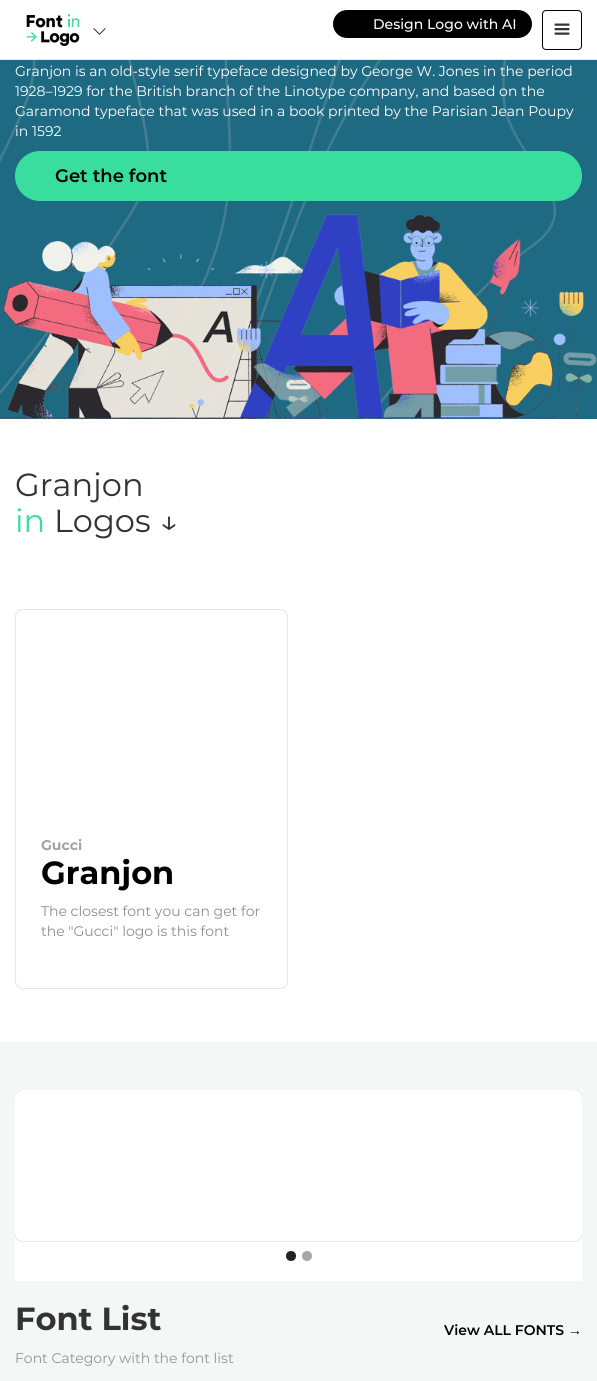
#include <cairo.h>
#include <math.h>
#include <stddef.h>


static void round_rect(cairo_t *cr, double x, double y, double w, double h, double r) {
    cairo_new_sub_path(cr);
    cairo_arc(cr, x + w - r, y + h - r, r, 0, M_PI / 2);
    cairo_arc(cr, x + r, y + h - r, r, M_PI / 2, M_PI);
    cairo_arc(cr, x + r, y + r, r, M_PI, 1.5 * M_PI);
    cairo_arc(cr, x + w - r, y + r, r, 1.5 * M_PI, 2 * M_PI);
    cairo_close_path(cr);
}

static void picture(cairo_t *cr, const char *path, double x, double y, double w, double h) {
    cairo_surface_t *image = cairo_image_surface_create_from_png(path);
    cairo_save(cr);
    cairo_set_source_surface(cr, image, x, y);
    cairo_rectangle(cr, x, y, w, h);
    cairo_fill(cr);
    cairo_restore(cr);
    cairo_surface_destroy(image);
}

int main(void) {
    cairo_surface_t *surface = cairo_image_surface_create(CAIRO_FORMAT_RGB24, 597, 1381);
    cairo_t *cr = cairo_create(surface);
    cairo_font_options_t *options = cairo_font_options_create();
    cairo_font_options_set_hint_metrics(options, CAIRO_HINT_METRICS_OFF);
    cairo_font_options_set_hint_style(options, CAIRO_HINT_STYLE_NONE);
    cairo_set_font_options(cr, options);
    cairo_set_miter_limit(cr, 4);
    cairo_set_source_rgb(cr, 1, 1, 1);
    cairo_paint(cr);
    cairo_set_source_rgb(cr, 0.906, 0.906, 0.906);
    cairo_rectangle(cr, 0, 59, 597, 1);
    cairo_fill(cr);
    picture(cr, "img1.png", 26, 14, 54, 32);
    picture(cr, "img2.png", 93, 28, 13, 7);
    cairo_set_source_rgb(cr, 0, 0, 0);
    round_rect(cr, 333, 10, 199, 28, 14);
    cairo_fill(cr);
    cairo_select_font_face(cr, "Montserrat Medium", CAIRO_FONT_SLANT_NORMAL, CAIRO_FONT_WEIGHT_NORMAL);
    cairo_set_font_size(cr, 14);
    cairo_set_source_rgb(cr, 1, 1, 1);
    cairo_move_to(cr, 373, 29);
    cairo_show_text(cr, "Design Logo with AI");
    round_rect(cr, 542.5, 10.5, 39, 39, 3.5);
    cairo_set_source_rgb(cr, 0, 0, 0);
    cairo_set_line_width(cr, 1);
    cairo_stroke(cr);
    picture(cr, "img3.png", 554, 23, 16, 12);
    cairo_set_source_rgb(cr, 0.122, 0.416, 0.514);
    cairo_rectangle(cr, 0, 60, 597, 359);
    cairo_fill(cr);
    picture(cr, "img4.png", 0, 60, 557, 359);
    cairo_select_font_face(cr, "Montserrat", CAIRO_FONT_SLANT_NORMAL, CAIRO_FONT_WEIGHT_NORMAL);
    cairo_set_source_rgb(cr, 1, 1, 1);
    cairo_move_to(cr, 15, 76);
    cairo_show_text(cr, "Granjon is an old-style serif typeface designed by George W. Jones in the period");
    cairo_move_to(cr, 15, 96);
    cairo_show_text(cr, "1928–1929 for the British branch of the Linotype company, and based on the");
    cairo_move_to(cr, 15, 116);
    cairo_show_text(cr, "Garamond typeface that was used in a book printed by the Parisian Jean Poupy");
    cairo_move_to(cr, 15, 136);
    cairo_show_text(cr, "in 1592");
    cairo_set_source_rgb(cr, 0.224, 0.871, 0.62);
    round_rect(cr, 15, 151, 567, 50, 25);
    cairo_fill(cr);
    cairo_select_font_face(cr, "Montserrat SemiBold", CAIRO_FONT_SLANT_NORMAL, CAIRO_FONT_WEIGHT_NORMAL);
    cairo_set_font_size(cr, 18);
    cairo_set_source_rgb(cr, 0, 0, 0);
    cairo_move_to(cr, 55, 182);
    cairo_show_text(cr, "Get the font");
    picture(cr, "img5.png", 0, 214, 597, 205);
    cairo_select_font_face(cr, "Montserrat", CAIRO_FONT_SLANT_NORMAL, CAIRO_FONT_WEIGHT_NORMAL);
    cairo_set_font_size(cr, 32);
    cairo_set_source_rgb(cr, 0.2, 0.2, 0.2);
    cairo_move_to(cr, 15, 496);
    cairo_show_text(cr, "Granjon");
    cairo_set_source_rgb(cr, 0.224, 0.871, 0.62);
    cairo_move_to(cr, 15, 532);
    cairo_show_text(cr, "in");
    cairo_set_source_rgb(cr, 0.2, 0.2, 0.2);
    cairo_move_to(cr, 54, 532);
    cairo_show_text(cr, "Logos ↓");
    round_rect(cr, 15.5, 609.5, 272, 379, 7.5);
    cairo_set_source_rgb(cr, 0.898, 0.898, 0.898);
    cairo_stroke(cr);
    cairo_select_font_face(cr, "Montserrat", CAIRO_FONT_SLANT_NORMAL, CAIRO_FONT_WEIGHT_BOLD);
    cairo_set_font_size(cr, 14);
    cairo_set_source_rgb(cr, 0.639, 0.639, 0.639);
    cairo_move_to(cr, 41, 850);
    cairo_show_text(cr, "Gucci");
    cairo_set_font_size(cr, 32);
    cairo_set_source_rgb(cr, 0, 0, 0);
    cairo_move_to(cr, 41, 884);
    cairo_show_text(cr, "Granjon");
    cairo_select_font_face(cr, "Montserrat", CAIRO_FONT_SLANT_NORMAL, CAIRO_FONT_WEIGHT_NORMAL);
    cairo_set_font_size(cr, 14);
    cairo_set_source_rgb(cr, 0.553, 0.557, 0.557);
    cairo_move_to(cr, 41, 916);
    cairo_show_text(cr, "The closest font you can get for");
    cairo_move_to(cr, 41, 936);
    cairo_show_text(cr, "the \"Gucci\" logo is this font");
    cairo_set_source_rgb(cr, 0.953, 0.969, 0.961);
    cairo_rectangle(cr, 0, 1042, 597, 339);
    cairo_fill(cr);
    cairo_set_source_rgb(cr, 1, 1, 1);
    cairo_rectangle(cr, 15, 1090, 567, 191);
    cairo_fill(cr);
    cairo_save(cr);
    cairo_rectangle(cr, 15, 1090, 567, 161);
    cairo_clip(cr);
    round_rect(cr, 14.5, 1089.5, 568, 152, 8.5);
    cairo_set_source_rgb(cr, 0.902, 0.902, 0.902);
    cairo_stroke(cr);
    cairo_restore(cr);
    cairo_set_source_rgb(cr, 0.133, 0.133, 0.133);
    cairo_arc(cr, 291, 1256, 5, 0, 2 * M_PI);
    cairo_fill(cr);
    cairo_set_source_rgb(cr, 0.655, 0.655, 0.655);
    cairo_arc(cr, 307, 1256, 5, 0, 2 * M_PI);
    cairo_fill(cr);
    cairo_select_font_face(cr, "Montserrat", CAIRO_FONT_SLANT_NORMAL, CAIRO_FONT_WEIGHT_BOLD);
    cairo_set_font_size(cr, 32);
    cairo_set_source_rgb(cr, 0.2, 0.2, 0.2);
    cairo_move_to(cr, 15, 1330);
    cairo_show_text(cr, "Font List");
    cairo_select_font_face(cr, "Montserrat", CAIRO_FONT_SLANT_NORMAL, CAIRO_FONT_WEIGHT_NORMAL);
    cairo_set_font_size(cr, 14);
    cairo_set_source_rgb(cr, 0.576, 0.584, 0.58);
    cairo_move_to(cr, 15, 1363);
    cairo_show_text(cr, "Font Category with the font list");
    cairo_select_font_face(cr, "Montserrat SemiBold", CAIRO_FONT_SLANT_NORMAL, CAIRO_FONT_WEIGHT_NORMAL);
    cairo_set_source_rgb(cr, 0, 0, 0);
    cairo_move_to(cr, 444, 1335);
    cairo_show_text(cr, "View ALL FONTS");
    cairo_select_font_face(cr, "Liberation Sans", CAIRO_FONT_SLANT_NORMAL, CAIRO_FONT_WEIGHT_BOLD);
    cairo_move_to(cr, 568, 1335);
    cairo_show_text(cr, "→");
    cairo_surface_write_to_png(surface, "page.png");
    cairo_font_options_destroy(options);
    cairo_destroy(cr);
    cairo_surface_destroy(surface);
    return 0;
}
